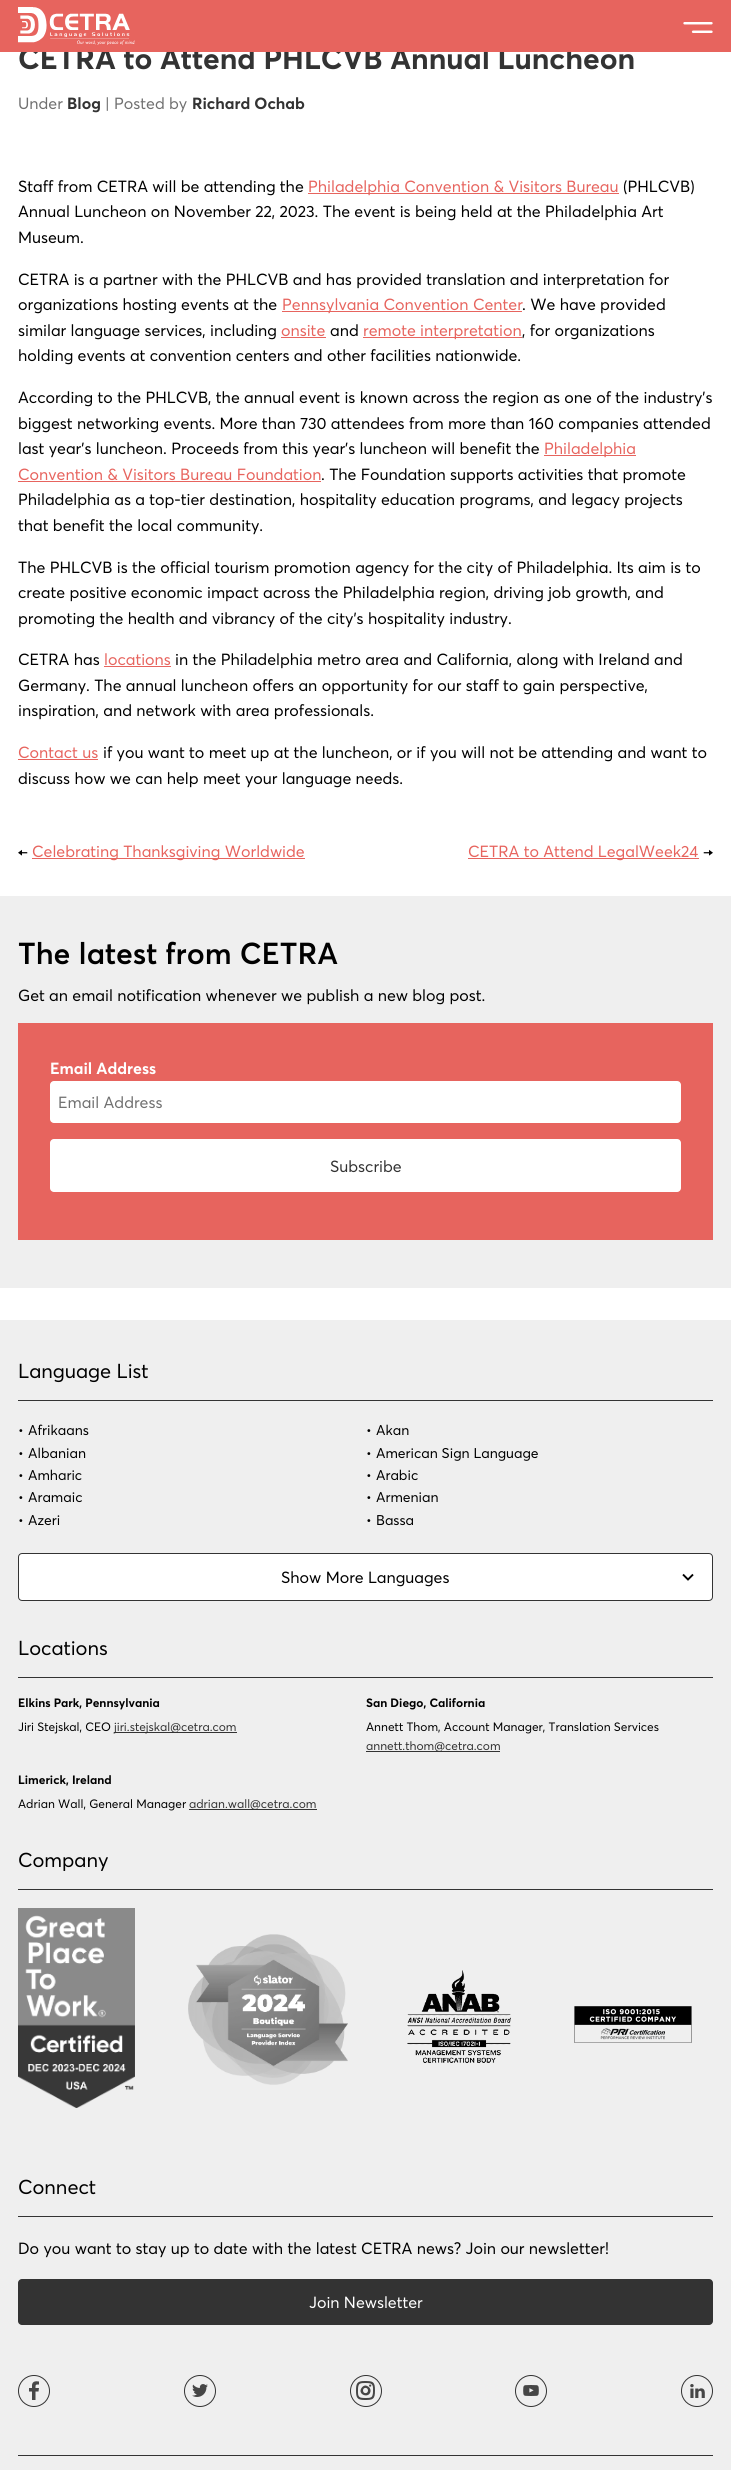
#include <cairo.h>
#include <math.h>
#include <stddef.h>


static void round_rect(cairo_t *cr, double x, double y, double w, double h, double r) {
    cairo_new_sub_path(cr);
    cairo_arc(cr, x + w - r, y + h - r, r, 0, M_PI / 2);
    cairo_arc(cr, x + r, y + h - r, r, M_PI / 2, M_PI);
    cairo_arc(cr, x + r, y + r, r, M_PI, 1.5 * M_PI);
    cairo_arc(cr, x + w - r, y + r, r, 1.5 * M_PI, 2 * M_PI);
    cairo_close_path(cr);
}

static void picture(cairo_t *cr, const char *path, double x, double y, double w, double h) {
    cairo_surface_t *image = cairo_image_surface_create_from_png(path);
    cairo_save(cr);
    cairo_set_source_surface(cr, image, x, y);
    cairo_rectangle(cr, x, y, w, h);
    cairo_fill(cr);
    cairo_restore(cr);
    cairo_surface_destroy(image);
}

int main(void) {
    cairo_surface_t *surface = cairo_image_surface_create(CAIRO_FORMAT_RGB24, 731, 2470);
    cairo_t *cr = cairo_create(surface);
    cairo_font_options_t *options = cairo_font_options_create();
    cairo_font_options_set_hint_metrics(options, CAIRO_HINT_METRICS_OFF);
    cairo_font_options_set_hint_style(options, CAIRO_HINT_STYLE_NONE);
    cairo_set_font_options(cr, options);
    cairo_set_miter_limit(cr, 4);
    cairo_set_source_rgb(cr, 1, 1, 1);
    cairo_paint(cr);
    cairo_select_font_face(cr, "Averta", CAIRO_FONT_SLANT_NORMAL, CAIRO_FONT_WEIGHT_BOLD);
    cairo_set_font_size(cr, 30);
    cairo_set_source_rgb(cr, 0.2, 0.2, 0.2);
    cairo_move_to(cr, 18, 69);
    cairo_show_text(cr, "CETRA to Attend PHLCVB Annual Luncheon");
    cairo_set_source_rgb(cr, 0.906, 0.392, 0.369);
    cairo_rectangle(cr, 0, 0, 731, 52);
    cairo_fill(cr);
    picture(cr, "img1.png", 18, 7, 117, 38);
    picture(cr, "img2.png", 683, 22, 30, 11);
    cairo_select_font_face(cr, "Averta", CAIRO_FONT_SLANT_NORMAL, CAIRO_FONT_WEIGHT_NORMAL);
    cairo_set_font_size(cr, 16);
    cairo_set_source_rgb(cr, 0.439, 0.439, 0.439);
    cairo_move_to(cr, 18, 109);
    cairo_show_text(cr, "Under");
    cairo_select_font_face(cr, "Averta", CAIRO_FONT_SLANT_NORMAL, CAIRO_FONT_WEIGHT_BOLD);
    cairo_set_source_rgb(cr, 0.2, 0.2, 0.2);
    cairo_move_to(cr, 67, 109);
    cairo_show_text(cr, "Blog");
    cairo_select_font_face(cr, "Averta", CAIRO_FONT_SLANT_NORMAL, CAIRO_FONT_WEIGHT_NORMAL);
    cairo_set_source_rgb(cr, 0.439, 0.439, 0.439);
    cairo_move_to(cr, 105, 109);
    cairo_show_text(cr, "| Posted by");
    cairo_select_font_face(cr, "Averta", CAIRO_FONT_SLANT_NORMAL, CAIRO_FONT_WEIGHT_BOLD);
    cairo_set_source_rgb(cr, 0.2, 0.2, 0.2);
    cairo_move_to(cr, 192, 109);
    cairo_show_text(cr, "Richard Ochab");
    cairo_select_font_face(cr, "Averta", CAIRO_FONT_SLANT_NORMAL, CAIRO_FONT_WEIGHT_NORMAL);
    cairo_set_source_rgb(cr, 0, 0, 0);
    cairo_move_to(cr, 18, 192);
    cairo_show_text(cr, "Staff from CETRA will be attending the");
    cairo_set_source_rgb(cr, 0.906, 0.392, 0.369);
    cairo_rectangle(cr, 308, 193, 311, 1);
    cairo_fill(cr);
    cairo_move_to(cr, 308, 192);
    cairo_show_text(cr, "Philadelphia Convention & Visitors Bureau");
    cairo_set_source_rgb(cr, 0, 0, 0);
    cairo_move_to(cr, 623, 192);
    cairo_show_text(cr, "(PHLCVB)");
    cairo_move_to(cr, 18, 217);
    cairo_show_text(cr, "Annual Luncheon on November 22, 2023. The event is being held at the Philadelphia Art");
    cairo_move_to(cr, 18, 243);
    cairo_show_text(cr, "Museum.");
    cairo_move_to(cr, 18, 285);
    cairo_show_text(cr, "CETRA is a partner with the PHLCVB and has provided translation and interpretation for");
    cairo_move_to(cr, 18, 310);
    cairo_show_text(cr, "organizations hosting events at the");
    cairo_set_source_rgb(cr, 0.906, 0.392, 0.369);
    cairo_rectangle(cr, 282, 311, 240, 1);
    cairo_fill(cr);
    cairo_move_to(cr, 282, 310);
    cairo_show_text(cr, "Pennsylvania Convention Center");
    cairo_set_source_rgb(cr, 0, 0, 0);
    cairo_move_to(cr, 522, 310);
    cairo_show_text(cr, ". We have provided");
    cairo_move_to(cr, 18, 336);
    cairo_show_text(cr, "similar language services, including");
    cairo_set_source_rgb(cr, 0.906, 0.392, 0.369);
    cairo_move_to(cr, 281, 336);
    cairo_show_text(cr, "onsite");
    cairo_rectangle(cr, 281, 337, 45, 1);
    cairo_fill(cr);
    cairo_set_source_rgb(cr, 0, 0, 0);
    cairo_move_to(cr, 330, 336);
    cairo_show_text(cr, "and");
    cairo_set_source_rgb(cr, 0.906, 0.392, 0.369);
    cairo_rectangle(cr, 363, 337, 159, 1);
    cairo_fill(cr);
    cairo_move_to(cr, 363, 336);
    cairo_show_text(cr, "remote interpretation");
    cairo_set_source_rgb(cr, 0, 0, 0);
    cairo_move_to(cr, 522, 336);
    cairo_show_text(cr, ", for organizations");
    cairo_move_to(cr, 18, 361);
    cairo_show_text(cr, "holding events at convention centers and other facilities nationwide.");
    cairo_move_to(cr, 18, 403);
    cairo_show_text(cr, "According to the PHLCVB, the annual event is known across the region as one of the industry’s");
    cairo_move_to(cr, 18, 429);
    cairo_show_text(cr, "biggest networking events. More than 730 attendees from more than 160 companies attended");
    cairo_move_to(cr, 18, 454);
    cairo_show_text(cr, "last year’s luncheon. Proceeds from this year’s luncheon will benefit the");
    cairo_set_source_rgb(cr, 0.906, 0.392, 0.369);
    cairo_rectangle(cr, 544, 455, 92, 1);
    cairo_fill(cr);
    cairo_move_to(cr, 544, 454);
    cairo_show_text(cr, "Philadelphia");
    cairo_move_to(cr, 18, 480);
    cairo_show_text(cr, "Convention & Visitors Bureau Foundation");
    cairo_rectangle(cr, 18, 481, 303, 1);
    cairo_fill(cr);
    cairo_set_source_rgb(cr, 0, 0, 0);
    cairo_move_to(cr, 321, 480);
    cairo_show_text(cr, ". The Foundation supports activities that promote");
    cairo_move_to(cr, 18, 505);
    cairo_show_text(cr, "Philadelphia as a top-tier destination, hospitality education programs, and legacy projects");
    cairo_move_to(cr, 18, 531);
    cairo_show_text(cr, "that benefit the local community.");
    cairo_move_to(cr, 18, 573);
    cairo_show_text(cr, "The PHLCVB is the official tourism promotion agency for the city of Philadelphia. Its aim is to");
    cairo_move_to(cr, 18, 598);
    cairo_show_text(cr, "create positive economic impact across the Philadelphia region, driving job growth, and");
    cairo_move_to(cr, 18, 624);
    cairo_show_text(cr, "promoting the health and vibrancy of the city’s hospitality industry.");
    cairo_move_to(cr, 18, 665);
    cairo_show_text(cr, "CETRA has");
    cairo_set_source_rgb(cr, 0.906, 0.392, 0.369);
    cairo_move_to(cr, 104, 665);
    cairo_show_text(cr, "locations");
    cairo_rectangle(cr, 104, 666, 67, 1);
    cairo_fill(cr);
    cairo_set_source_rgb(cr, 0, 0, 0);
    cairo_move_to(cr, 175, 665);
    cairo_show_text(cr, "in the Philadelphia metro area and California, along with Ireland and");
    cairo_move_to(cr, 18, 691);
    cairo_show_text(cr, "Germany. The annual luncheon offers an opportunity for our staff to gain perspective,");
    cairo_move_to(cr, 18, 716);
    cairo_show_text(cr, "inspiration, and network with area professionals.");
    cairo_set_source_rgb(cr, 0.906, 0.392, 0.369);
    cairo_move_to(cr, 18, 758);
    cairo_show_text(cr, "Contact us");
    cairo_rectangle(cr, 18, 759, 80, 1);
    cairo_fill(cr);
    cairo_set_source_rgb(cr, 0, 0, 0);
    cairo_move_to(cr, 103, 758);
    cairo_show_text(cr, "if you want to meet up at the luncheon, or if you will not be attending and want to");
    cairo_move_to(cr, 18, 784);
    cairo_show_text(cr, "discuss how we can help meet your language needs.");
    cairo_move_to(cr, 18, 857);
    cairo_show_text(cr, "←");
    cairo_set_source_rgb(cr, 0.906, 0.392, 0.369);
    cairo_rectangle(cr, 32, 858, 273, 1);
    cairo_fill(cr);
    cairo_move_to(cr, 32, 857);
    cairo_show_text(cr, "Celebrating Thanksgiving Worldwide");
    cairo_rectangle(cr, 468, 858, 231, 1);
    cairo_fill(cr);
    cairo_move_to(cr, 468, 857);
    cairo_show_text(cr, "CETRA to Attend LegalWeek24");
    cairo_set_source_rgb(cr, 0, 0, 0);
    cairo_move_to(cr, 703, 857);
    cairo_show_text(cr, "→");
    cairo_set_source_rgb(cr, 0.937, 0.937, 0.937);
    cairo_rectangle(cr, 0, 896, 731, 392);
    cairo_fill(cr);
    cairo_select_font_face(cr, "Averta SemiBold", CAIRO_FONT_SLANT_NORMAL, CAIRO_FONT_WEIGHT_NORMAL);
    cairo_set_font_size(cr, 30);
    cairo_set_source_rgb(cr, 0, 0, 0);
    cairo_move_to(cr, 18, 964);
    cairo_show_text(cr, "The latest from CETRA");
    cairo_select_font_face(cr, "Averta", CAIRO_FONT_SLANT_NORMAL, CAIRO_FONT_WEIGHT_NORMAL);
    cairo_set_font_size(cr, 16);
    cairo_move_to(cr, 18, 1001);
    cairo_show_text(cr, "Get an email notification whenever we publish a new blog post.");
    cairo_set_source_rgb(cr, 0.906, 0.392, 0.369);
    cairo_rectangle(cr, 18, 1023, 695, 217);
    cairo_fill(cr);
    cairo_select_font_face(cr, "Averta", CAIRO_FONT_SLANT_NORMAL, CAIRO_FONT_WEIGHT_BOLD);
    cairo_set_source_rgb(cr, 1, 1, 1);
    cairo_move_to(cr, 50, 1074);
    cairo_show_text(cr, "Email Address");
    round_rect(cr, 50, 1081, 631, 42, 4);
    cairo_fill(cr);
    cairo_select_font_face(cr, "Averta", CAIRO_FONT_SLANT_NORMAL, CAIRO_FONT_WEIGHT_NORMAL);
    cairo_set_source_rgb(cr, 0.439, 0.439, 0.439);
    cairo_move_to(cr, 58, 1108);
    cairo_show_text(cr, "Email Address");
    cairo_set_source_rgb(cr, 1, 1, 1);
    round_rect(cr, 50, 1139, 631, 53, 4);
    cairo_fill(cr);
    cairo_set_source_rgb(cr, 0.2, 0.2, 0.2);
    cairo_move_to(cr, 330, 1172);
    cairo_show_text(cr, "Subscribe");
    cairo_set_source_rgb(cr, 0.937, 0.937, 0.937);
    cairo_rectangle(cr, 0, 1320, 731, 1150);
    cairo_fill(cr);
    cairo_set_source_rgb(cr, 0.2, 0.2, 0.2);
    cairo_rectangle(cr, 18, 1400, 695, 1);
    cairo_fill(cr);
    cairo_set_font_size(cr, 20);
    cairo_set_source_rgb(cr, 0, 0, 0);
    cairo_move_to(cr, 18, 1378);
    cairo_show_text(cr, "Language List");
    cairo_set_font_size(cr, 14);
    cairo_move_to(cr, 18, 1435);
    cairo_show_text(cr, "•");
    cairo_move_to(cr, 28, 1435);
    cairo_show_text(cr, "Afrikaans");
    cairo_move_to(cr, 366, 1435);
    cairo_show_text(cr, "•");
    cairo_move_to(cr, 376, 1435);
    cairo_show_text(cr, "Akan");
    cairo_move_to(cr, 18, 1458);
    cairo_show_text(cr, "•");
    cairo_move_to(cr, 28, 1458);
    cairo_show_text(cr, "Albanian");
    cairo_move_to(cr, 366, 1458);
    cairo_show_text(cr, "•");
    cairo_move_to(cr, 376, 1458);
    cairo_show_text(cr, "American Sign Language");
    cairo_move_to(cr, 18, 1480);
    cairo_show_text(cr, "•");
    cairo_move_to(cr, 28, 1480);
    cairo_show_text(cr, "Amharic");
    cairo_move_to(cr, 366, 1480);
    cairo_show_text(cr, "•");
    cairo_move_to(cr, 376, 1480);
    cairo_show_text(cr, "Arabic");
    cairo_move_to(cr, 18, 1502);
    cairo_show_text(cr, "•");
    cairo_move_to(cr, 28, 1502);
    cairo_show_text(cr, "Aramaic");
    cairo_move_to(cr, 366, 1502);
    cairo_show_text(cr, "•");
    cairo_move_to(cr, 376, 1502);
    cairo_show_text(cr, "Armenian");
    cairo_move_to(cr, 18, 1525);
    cairo_show_text(cr, "•");
    cairo_move_to(cr, 28, 1525);
    cairo_show_text(cr, "Azeri");
    cairo_move_to(cr, 366, 1525);
    cairo_show_text(cr, "•");
    cairo_move_to(cr, 376, 1525);
    cairo_show_text(cr, "Bassa");
    cairo_set_source_rgb(cr, 1, 1, 1);
    round_rect(cr, 18, 1553, 695, 48, 4);
    cairo_fill(cr);
    cairo_new_path(cr);
    cairo_move_to(cr, 683, 1574.5);
    cairo_line_to(cr, 688, 1579.5);
    cairo_line_to(cr, 693, 1574.5);
    cairo_set_source_rgb(cr, 0, 0, 0);
    cairo_set_line_width(cr, 1.9);
    cairo_stroke(cr);
    round_rect(cr, 18.5, 1553.5, 694, 47, 3.5);
    cairo_set_source_rgb(cr, 0.2, 0.2, 0.2);
    cairo_set_line_width(cr, 1);
    cairo_stroke(cr);
    cairo_set_font_size(cr, 16);
    cairo_set_source_rgb(cr, 0, 0, 0);
    cairo_move_to(cr, 281, 1583);
    cairo_show_text(cr, "Show More Languages");
    cairo_set_source_rgb(cr, 0.2, 0.2, 0.2);
    cairo_rectangle(cr, 18, 1677, 695, 1);
    cairo_fill(cr);
    cairo_set_font_size(cr, 20);
    cairo_set_source_rgb(cr, 0, 0, 0);
    cairo_move_to(cr, 18, 1655);
    cairo_show_text(cr, "Locations");
    cairo_select_font_face(cr, "Averta", CAIRO_FONT_SLANT_NORMAL, CAIRO_FONT_WEIGHT_BOLD);
    cairo_set_font_size(cr, 12);
    cairo_move_to(cr, 18, 1707);
    cairo_show_text(cr, "Elkins Park, Pennsylvania");
    cairo_select_font_face(cr, "Averta", CAIRO_FONT_SLANT_NORMAL, CAIRO_FONT_WEIGHT_NORMAL);
    cairo_move_to(cr, 18, 1731);
    cairo_show_text(cr, "Jiri Stejskal, CEO");
    cairo_set_source_rgb(cr, 0.2, 0.2, 0.2);
    cairo_rectangle(cr, 114, 1732, 123, 1);
    cairo_fill(cr);
    cairo_move_to(cr, 114, 1731);
    cairo_show_text(cr, "jiri.stejskal@cetra.com");
    cairo_select_font_face(cr, "Averta", CAIRO_FONT_SLANT_NORMAL, CAIRO_FONT_WEIGHT_BOLD);
    cairo_set_source_rgb(cr, 0, 0, 0);
    cairo_move_to(cr, 366, 1707);
    cairo_show_text(cr, "San Diego, California");
    cairo_select_font_face(cr, "Averta", CAIRO_FONT_SLANT_NORMAL, CAIRO_FONT_WEIGHT_NORMAL);
    cairo_move_to(cr, 366, 1731);
    cairo_show_text(cr, "Annett Thom, Account Manager, Translation Services");
    cairo_set_source_rgb(cr, 0.2, 0.2, 0.2);
    cairo_rectangle(cr, 366, 1751, 134, 1);
    cairo_fill(cr);
    cairo_move_to(cr, 366, 1750);
    cairo_show_text(cr, "annett.thom@cetra.com");
    cairo_select_font_face(cr, "Averta", CAIRO_FONT_SLANT_NORMAL, CAIRO_FONT_WEIGHT_BOLD);
    cairo_set_source_rgb(cr, 0, 0, 0);
    cairo_move_to(cr, 18, 1784);
    cairo_show_text(cr, "Limerick, Ireland");
    cairo_select_font_face(cr, "Averta", CAIRO_FONT_SLANT_NORMAL, CAIRO_FONT_WEIGHT_NORMAL);
    cairo_move_to(cr, 18, 1808);
    cairo_show_text(cr, "Adrian Wall, General Manager");
    cairo_set_source_rgb(cr, 0.2, 0.2, 0.2);
    cairo_rectangle(cr, 189, 1809, 128, 1);
    cairo_fill(cr);
    cairo_move_to(cr, 189, 1808);
    cairo_show_text(cr, "adrian.wall@cetra.com");
    cairo_rectangle(cr, 18, 1889, 695, 1);
    cairo_fill(cr);
    cairo_set_font_size(cr, 20);
    cairo_set_source_rgb(cr, 0, 0, 0);
    cairo_move_to(cr, 18, 1867);
    cairo_show_text(cr, "Company");
    picture(cr, "img3.png", 18, 1908, 117, 200);
    picture(cr, "img4.png", 188, 1934, 160, 151);
    picture(cr, "img5.png", 407, 1970, 104, 93);
    picture(cr, "img6.png", 574, 2006, 118, 37);
    cairo_set_source_rgb(cr, 0.2, 0.2, 0.2);
    cairo_rectangle(cr, 18, 2216, 695, 1);
    cairo_fill(cr);
    cairo_set_source_rgb(cr, 0, 0, 0);
    cairo_move_to(cr, 18, 2194);
    cairo_show_text(cr, "Connect");
    cairo_set_font_size(cr, 16);
    cairo_move_to(cr, 18, 2254);
    cairo_show_text(cr, "Do you want to stay up to date with the latest CETRA news? Join our newsletter!");
    cairo_set_source_rgb(cr, 0.2, 0.2, 0.2);
    round_rect(cr, 18, 2279, 695, 46, 4);
    cairo_fill(cr);
    cairo_set_source_rgb(cr, 1, 1, 1);
    cairo_move_to(cr, 309, 2308);
    cairo_show_text(cr, "Join Newsletter");
    cairo_set_source_rgb(cr, 0.275, 0.275, 0.275);
    cairo_new_path(cr);
    cairo_move_to(cr, 32, 2385);
    cairo_curve_to(cr, 32.5, 2381, 36, 2381, 39, 2381.5);
    cairo_line_to(cr, 39, 2384.5);
    cairo_curve_to(cr, 35.5, 2384.5, 35.5, 2384.5, 35.5, 2388);
    cairo_line_to(cr, 39, 2388);
    cairo_line_to(cr, 38.5, 2391.5);
    cairo_line_to(cr, 35.5, 2391.5);
    cairo_line_to(cr, 35.5, 2400);
    cairo_line_to(cr, 32, 2400);
    cairo_line_to(cr, 32, 2391.5);
    cairo_line_to(cr, 29, 2391.5);
    cairo_line_to(cr, 29, 2388);
    cairo_line_to(cr, 32, 2388);
    cairo_close_path(cr);
    cairo_fill(cr);
    cairo_arc(cr, 34, 2391, 15.5, 0, 2 * M_PI);
    cairo_set_source_rgb(cr, 0.2, 0.2, 0.2);
    cairo_stroke(cr);
    picture(cr, "img7.png", 192, 2384, 16, 13);
    cairo_arc(cr, 200, 2391, 15.5, 0, 2 * M_PI);
    cairo_stroke(cr);
    cairo_set_source_rgb(cr, 0.275, 0.275, 0.275);
    cairo_set_fill_rule(cr, CAIRO_FILL_RULE_EVEN_ODD);
    cairo_new_path(cr);
    cairo_move_to(cr, 364.5, 2381);
    cairo_curve_to(cr, 373, 2381, 375, 2381.5, 375, 2390.5);
    cairo_curve_to(cr, 375, 2399.5, 373, 2400, 364.5, 2400);
    cairo_curve_to(cr, 357, 2400, 356, 2397.5, 356, 2390.5);
    cairo_curve_to(cr, 356, 2383.5, 357, 2381, 364.5, 2381);
    cairo_close_path(cr);
    cairo_move_to(cr, 360.5, 2397.5);
    cairo_curve_to(cr, 362, 2398, 364.5, 2398, 366, 2398);
    cairo_curve_to(cr, 368, 2398, 370, 2398, 371.5, 2397);
    cairo_curve_to(cr, 373, 2395.5, 373, 2392.5, 373, 2390.5);
    cairo_curve_to(cr, 373, 2388, 373.5, 2385, 370.5, 2383.5);
    cairo_curve_to(cr, 369, 2383, 366.5, 2383, 365, 2383);
    cairo_curve_to(cr, 363, 2383, 361, 2383, 359.5, 2384);
    cairo_curve_to(cr, 358, 2385.5, 358, 2388, 358, 2390);
    cairo_curve_to(cr, 358, 2392.5, 357.5, 2396.5, 360.5, 2397.5);
    cairo_close_path(cr);
    cairo_move_to(cr, 369, 2386);
    cairo_curve_to(cr, 369, 2385, 369.5, 2384.5, 370, 2384.5);
    cairo_curve_to(cr, 372, 2384.5, 371.5, 2387.5, 369.5, 2386.5);
    cairo_close_path(cr);
    cairo_move_to(cr, 365.5, 2385.5);
    cairo_curve_to(cr, 368.5, 2386, 371, 2388.5, 370.5, 2391.5);
    cairo_curve_to(cr, 369, 2399, 357, 2394.5, 361.5, 2388);
    cairo_curve_to(cr, 362.5, 2386.5, 364, 2385.5, 365.5, 2385.5);
    cairo_close_path(cr);
    cairo_move_to(cr, 363, 2390.5);
    cairo_curve_to(cr, 363, 2394, 368, 2394, 368, 2390.5);
    cairo_curve_to(cr, 368, 2387, 363, 2387, 363, 2390.5);
    cairo_close_path(cr);
    cairo_fill(cr);
    cairo_arc(cr, 366, 2391, 15.5, 0, 2 * M_PI);
    cairo_set_source_rgb(cr, 0.2, 0.2, 0.2);
    cairo_stroke(cr);
    picture(cr, "img8.png", 523, 2385, 16, 11);
    cairo_arc(cr, 531, 2391, 15.5, 0, 2 * M_PI);
    cairo_stroke(cr);
    picture(cr, "img9.png", 690, 2384, 15, 14);
    cairo_arc(cr, 697, 2391, 15.5, 0, 2 * M_PI);
    cairo_stroke(cr);
    cairo_rectangle(cr, 18, 2455, 695, 1);
    cairo_fill(cr);
    cairo_surface_write_to_png(surface, "page.png");
    cairo_font_options_destroy(options);
    cairo_destroy(cr);
    cairo_surface_destroy(surface);
    return 0;
}
